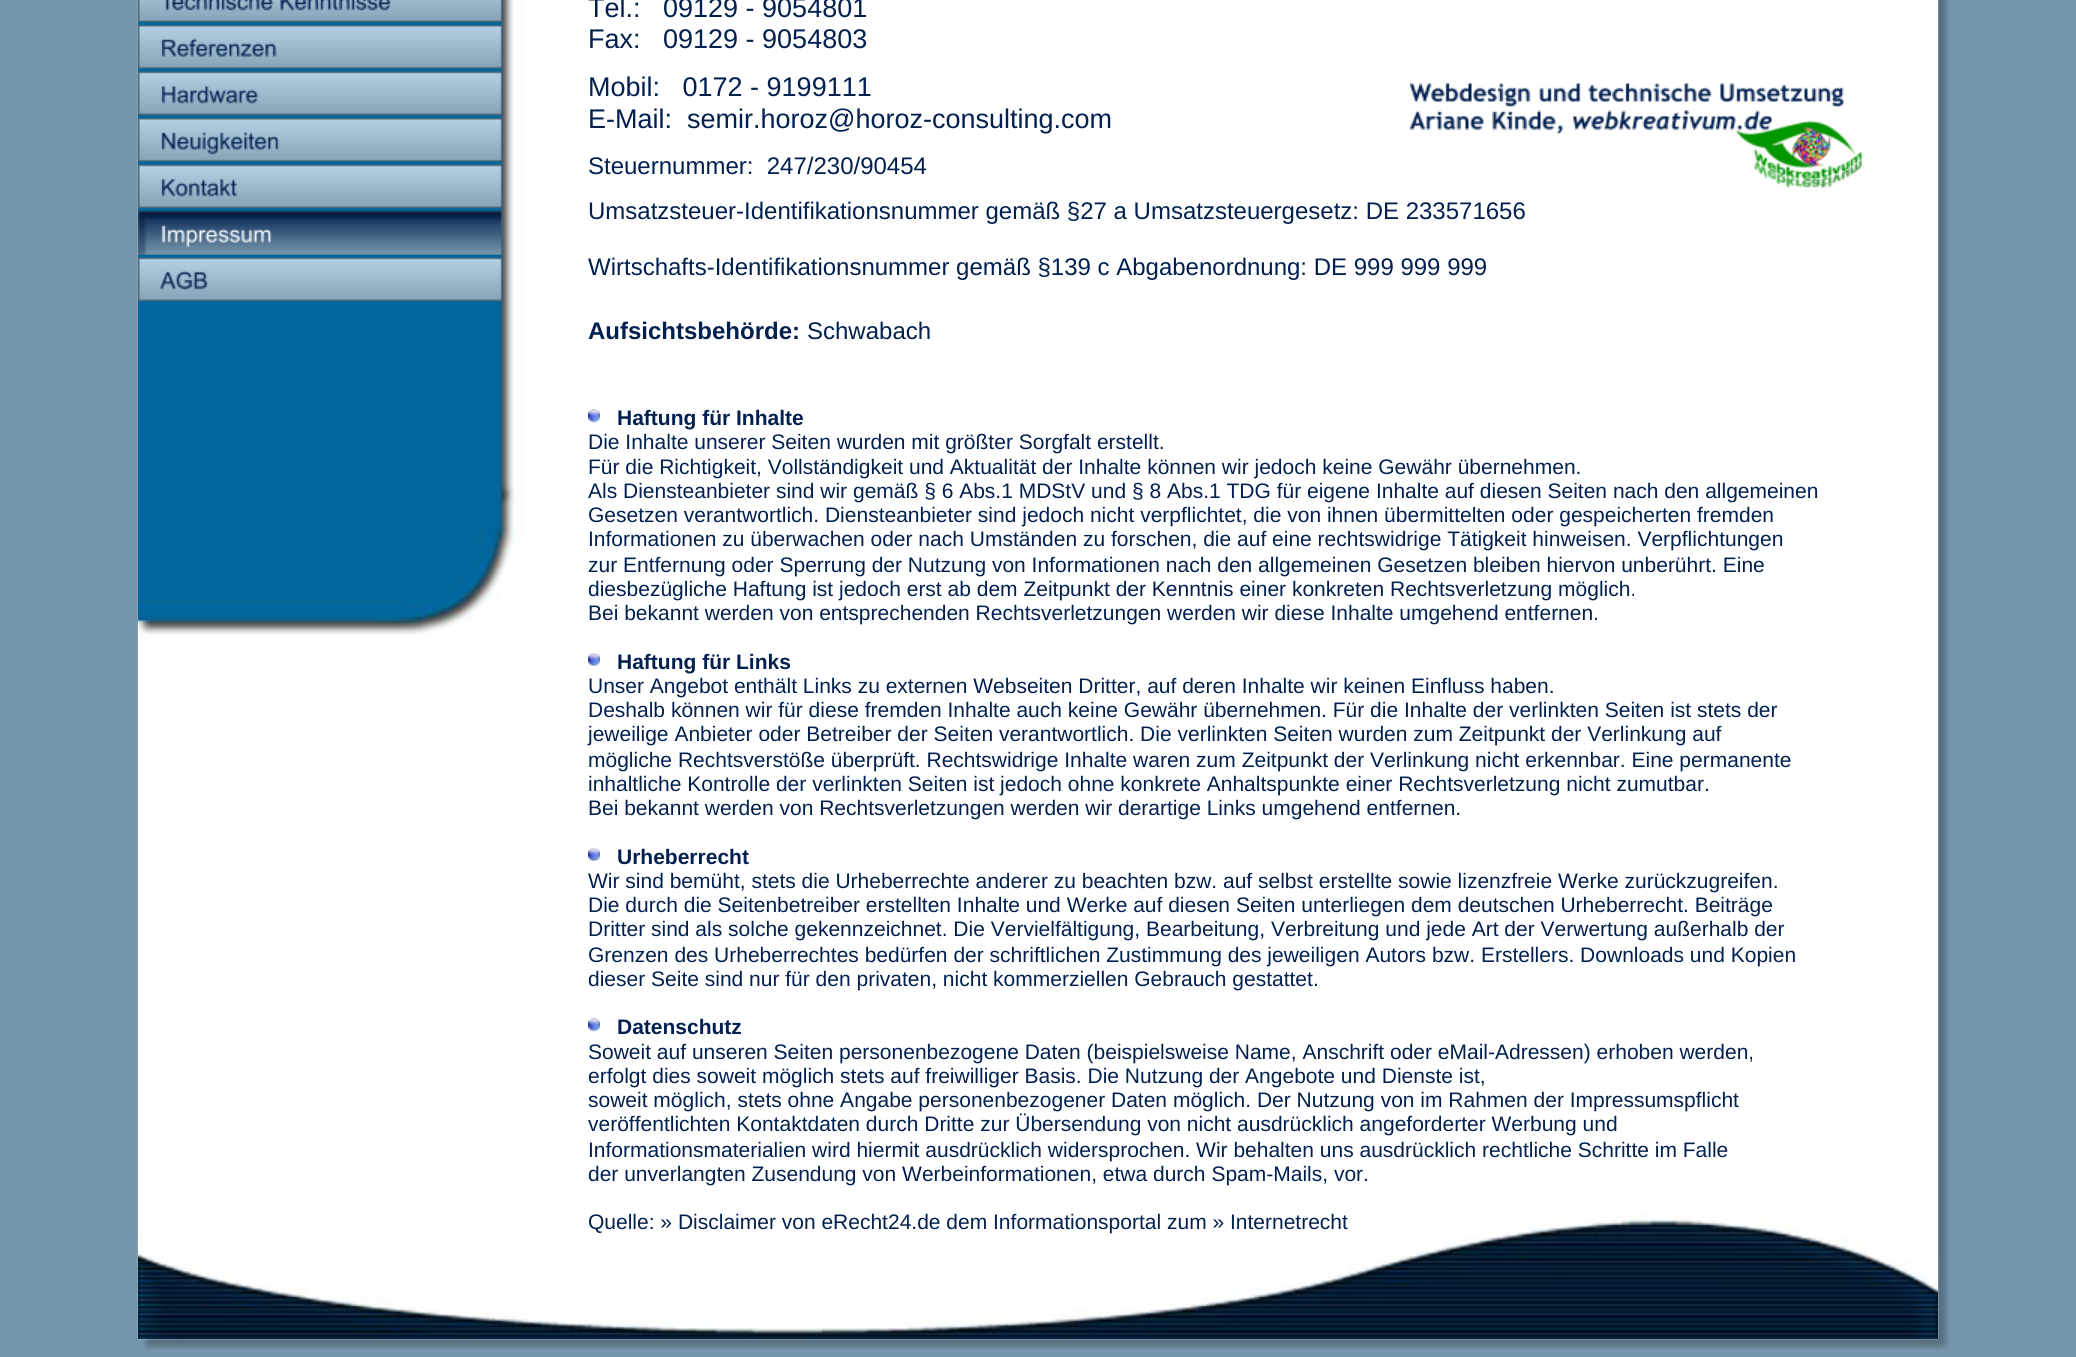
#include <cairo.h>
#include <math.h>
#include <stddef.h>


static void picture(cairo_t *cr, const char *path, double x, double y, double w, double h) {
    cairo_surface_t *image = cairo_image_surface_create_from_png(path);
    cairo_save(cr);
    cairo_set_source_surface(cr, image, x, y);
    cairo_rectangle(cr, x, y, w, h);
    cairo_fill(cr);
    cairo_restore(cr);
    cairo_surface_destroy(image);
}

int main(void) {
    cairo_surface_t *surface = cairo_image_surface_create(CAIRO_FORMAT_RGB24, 2076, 1357);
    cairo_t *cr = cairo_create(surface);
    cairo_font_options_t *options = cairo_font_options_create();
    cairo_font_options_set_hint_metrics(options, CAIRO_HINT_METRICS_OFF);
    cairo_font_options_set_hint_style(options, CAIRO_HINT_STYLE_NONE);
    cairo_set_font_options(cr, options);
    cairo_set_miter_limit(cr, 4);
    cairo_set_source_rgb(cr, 0.455, 0.584, 0.671);
    cairo_paint(cr);
    picture(cr, "img1.png", 137, 0, 1812, 1350);
    picture(cr, "img2.png", 138, 0, 1800, 653);
    picture(cr, "img3.png", 138, 0, 364, 23);
    cairo_select_font_face(cr, "Liberation Sans", CAIRO_FONT_SLANT_NORMAL, CAIRO_FONT_WEIGHT_NORMAL);
    cairo_set_font_size(cr, 27);
    cairo_set_source_rgb(cr, 0.004, 0.125, 0.31);
    cairo_move_to(cr, 588, 17);
    cairo_show_text(cr, "Tel.:   09129 - 9054801");
    cairo_move_to(cr, 588, 48);
    cairo_show_text(cr, "Fax:   09129 - 9054803");
    cairo_move_to(cr, 588, 96);
    cairo_show_text(cr, "Mobil:   0172 - 9199111");
    cairo_move_to(cr, 588, 128);
    cairo_show_text(cr, "E-Mail:  semir.horoz@horoz-consulting.com");
    cairo_set_font_size(cr, 24);
    cairo_move_to(cr, 588, 174);
    cairo_show_text(cr, "Steuernummer:  247/230/90454");
    picture(cr, "img6.png", 1410, 82, 453, 135);
    cairo_move_to(cr, 588, 219);
    cairo_show_text(cr, "Umsatzsteuer-Identifikationsnummer gemäß §27 a Umsatzsteuergesetz: DE 233571656");
    cairo_move_to(cr, 588, 275);
    cairo_show_text(cr, "Wirtschafts-Identifikationsnummer gemäß §139 c Abgabenordnung: DE 999 999 999");
    cairo_select_font_face(cr, "Liberation Sans", CAIRO_FONT_SLANT_NORMAL, CAIRO_FONT_WEIGHT_BOLD);
    cairo_move_to(cr, 588, 339);
    cairo_show_text(cr, "Aufsichtsbehörde:");
    cairo_select_font_face(cr, "Liberation Sans", CAIRO_FONT_SLANT_NORMAL, CAIRO_FONT_WEIGHT_NORMAL);
    cairo_move_to(cr, 807, 339);
    cairo_show_text(cr, "Schwabach");
    cairo_select_font_face(cr, "Liberation Sans", CAIRO_FONT_SLANT_NORMAL, CAIRO_FONT_WEIGHT_BOLD);
    cairo_set_font_size(cr, 21);
    cairo_move_to(cr, 617, 425);
    cairo_show_text(cr, "Haftung für Inhalte");
    cairo_select_font_face(cr, "Liberation Sans", CAIRO_FONT_SLANT_NORMAL, CAIRO_FONT_WEIGHT_NORMAL);
    cairo_move_to(cr, 588, 449);
    cairo_show_text(cr, "Die Inhalte unserer Seiten wurden mit größter Sorgfalt erstellt.");
    cairo_move_to(cr, 588, 474);
    cairo_show_text(cr, "Für die Richtigkeit, Vollständigkeit und Aktualität der Inhalte können wir jedoch keine Gewähr übernehmen.");
    cairo_move_to(cr, 588, 498);
    cairo_show_text(cr, "Als Diensteanbieter sind wir gemäß § 6 Abs.1 MDStV und § 8 Abs.1 TDG für eigene Inhalte auf diesen Seiten nach den allgemeinen");
    cairo_move_to(cr, 588, 522);
    cairo_show_text(cr, "Gesetzen verantwortlich. Diensteanbieter sind jedoch nicht verpflichtet, die von ihnen übermittelten oder gespeicherten fremden");
    cairo_move_to(cr, 588, 546);
    cairo_show_text(cr, "Informationen zu überwachen oder nach Umständen zu forschen, die auf eine rechtswidrige Tätigkeit hinweisen. Verpflichtungen");
    cairo_move_to(cr, 588, 572);
    cairo_show_text(cr, "zur Entfernung oder Sperrung der Nutzung von Informationen nach den allgemeinen Gesetzen bleiben hiervon unberührt. Eine");
    cairo_move_to(cr, 588, 596);
    cairo_show_text(cr, "diesbezügliche Haftung ist jedoch erst ab dem Zeitpunkt der Kenntnis einer konkreten Rechtsverletzung möglich.");
    cairo_move_to(cr, 588, 620);
    cairo_show_text(cr, "Bei bekannt werden von entsprechenden Rechtsverletzungen werden wir diese Inhalte umgehend entfernen.");
    cairo_set_source_rgb(cr, 1, 1, 1);
    cairo_rectangle(cr, 138, 653, 1800, 553);
    cairo_fill(cr);
    cairo_select_font_face(cr, "Liberation Sans", CAIRO_FONT_SLANT_NORMAL, CAIRO_FONT_WEIGHT_BOLD);
    cairo_set_source_rgb(cr, 0.004, 0.125, 0.31);
    cairo_move_to(cr, 617, 669);
    cairo_show_text(cr, "Haftung für Links");
    cairo_select_font_face(cr, "Liberation Sans", CAIRO_FONT_SLANT_NORMAL, CAIRO_FONT_WEIGHT_NORMAL);
    cairo_move_to(cr, 588, 693);
    cairo_show_text(cr, "Unser Angebot enthält Links zu externen Webseiten Dritter, auf deren Inhalte wir keinen Einfluss haben.");
    cairo_move_to(cr, 588, 717);
    cairo_show_text(cr, "Deshalb können wir für diese fremden Inhalte auch keine Gewähr übernehmen. Für die Inhalte der verlinkten Seiten ist stets der");
    cairo_move_to(cr, 588, 741);
    cairo_show_text(cr, "jeweilige Anbieter oder Betreiber der Seiten verantwortlich. Die verlinkten Seiten wurden zum Zeitpunkt der Verlinkung auf");
    cairo_move_to(cr, 588, 767);
    cairo_show_text(cr, "mögliche Rechtsverstöße überprüft. Rechtswidrige Inhalte waren zum Zeitpunkt der Verlinkung nicht erkennbar. Eine permanente");
    cairo_move_to(cr, 588, 791);
    cairo_show_text(cr, "inhaltliche Kontrolle der verlinkten Seiten ist jedoch ohne konkrete Anhaltspunkte einer Rechtsverletzung nicht zumutbar.");
    cairo_move_to(cr, 588, 815);
    cairo_show_text(cr, "Bei bekannt werden von Rechtsverletzungen werden wir derartige Links umgehend entfernen.");
    cairo_select_font_face(cr, "Liberation Sans", CAIRO_FONT_SLANT_NORMAL, CAIRO_FONT_WEIGHT_BOLD);
    cairo_move_to(cr, 617, 864);
    cairo_show_text(cr, "Urheberrecht");
    cairo_select_font_face(cr, "Liberation Sans", CAIRO_FONT_SLANT_NORMAL, CAIRO_FONT_WEIGHT_NORMAL);
    cairo_move_to(cr, 588, 888);
    cairo_show_text(cr, "Wir sind bemüht, stets die Urheberrechte anderer zu beachten bzw. auf selbst erstellte sowie lizenzfreie Werke zurückzugreifen.");
    cairo_move_to(cr, 588, 912);
    cairo_show_text(cr, "Die durch die Seitenbetreiber erstellten Inhalte und Werke auf diesen Seiten unterliegen dem deutschen Urheberrecht. Beiträge");
    cairo_move_to(cr, 588, 936);
    cairo_show_text(cr, "Dritter sind als solche gekennzeichnet. Die Vervielfältigung, Bearbeitung, Verbreitung und jede Art der Verwertung außerhalb der");
    cairo_move_to(cr, 588, 962);
    cairo_show_text(cr, "Grenzen des Urheberrechtes bedürfen der schriftlichen Zustimmung des jeweiligen Autors bzw. Erstellers. Downloads und Kopien");
    cairo_move_to(cr, 588, 986);
    cairo_show_text(cr, "dieser Seite sind nur für den privaten, nicht kommerziellen Gebrauch gestattet.");
    cairo_select_font_face(cr, "Liberation Sans", CAIRO_FONT_SLANT_NORMAL, CAIRO_FONT_WEIGHT_BOLD);
    cairo_move_to(cr, 617, 1034);
    cairo_show_text(cr, "Datenschutz");
    cairo_select_font_face(cr, "Liberation Sans", CAIRO_FONT_SLANT_NORMAL, CAIRO_FONT_WEIGHT_NORMAL);
    cairo_move_to(cr, 588, 1059);
    cairo_show_text(cr, "Soweit auf unseren Seiten personenbezogene Daten (beispielsweise Name, Anschrift oder eMail-Adressen) erhoben werden,");
    cairo_move_to(cr, 588, 1083);
    cairo_show_text(cr, "erfolgt dies soweit möglich stets auf freiwilliger Basis. Die Nutzung der Angebote und Dienste ist,");
    cairo_move_to(cr, 588, 1107);
    cairo_show_text(cr, "soweit möglich, stets ohne Angabe personenbezogener Daten möglich. Der Nutzung von im Rahmen der Impressumspflicht");
    cairo_move_to(cr, 588, 1131);
    cairo_show_text(cr, "veröffentlichten Kontaktdaten durch Dritte zur Übersendung von nicht ausdrücklich angeforderter Werbung und");
    cairo_move_to(cr, 588, 1157);
    cairo_show_text(cr, "Informationsmaterialien wird hiermit ausdrücklich widersprochen. Wir behalten uns ausdrücklich rechtliche Schritte im Falle");
    cairo_move_to(cr, 588, 1181);
    cairo_show_text(cr, "der unverlangten Zusendung von Werbeinformationen, etwa durch Spam-Mails, vor.");
    picture(cr, "img13.png", 138, 1206, 1800, 133);
    cairo_move_to(cr, 588, 1229);
    cairo_show_text(cr, "Quelle: » Disclaimer von eRecht24.de dem Informationsportal zum » Internetrecht");
    picture(cr, "img4.png", 138, 25, 364, 44);
    picture(cr, "img5.png", 138, 71, 364, 45);
    picture(cr, "img7.png", 138, 118, 364, 44);
    picture(cr, "img8.png", 138, 164, 364, 45);
    picture(cr, "img10.png", 138, 254, 364, 1);
    picture(cr, "img9.png", 138, 211, 365, 44);
    picture(cr, "img11.png", 138, 257, 364, 45);
    picture(cr, "img12.png", 588, 409, 12, 623);
    cairo_surface_write_to_png(surface, "page.png");
    cairo_font_options_destroy(options);
    cairo_destroy(cr);
    cairo_surface_destroy(surface);
    return 0;
}
